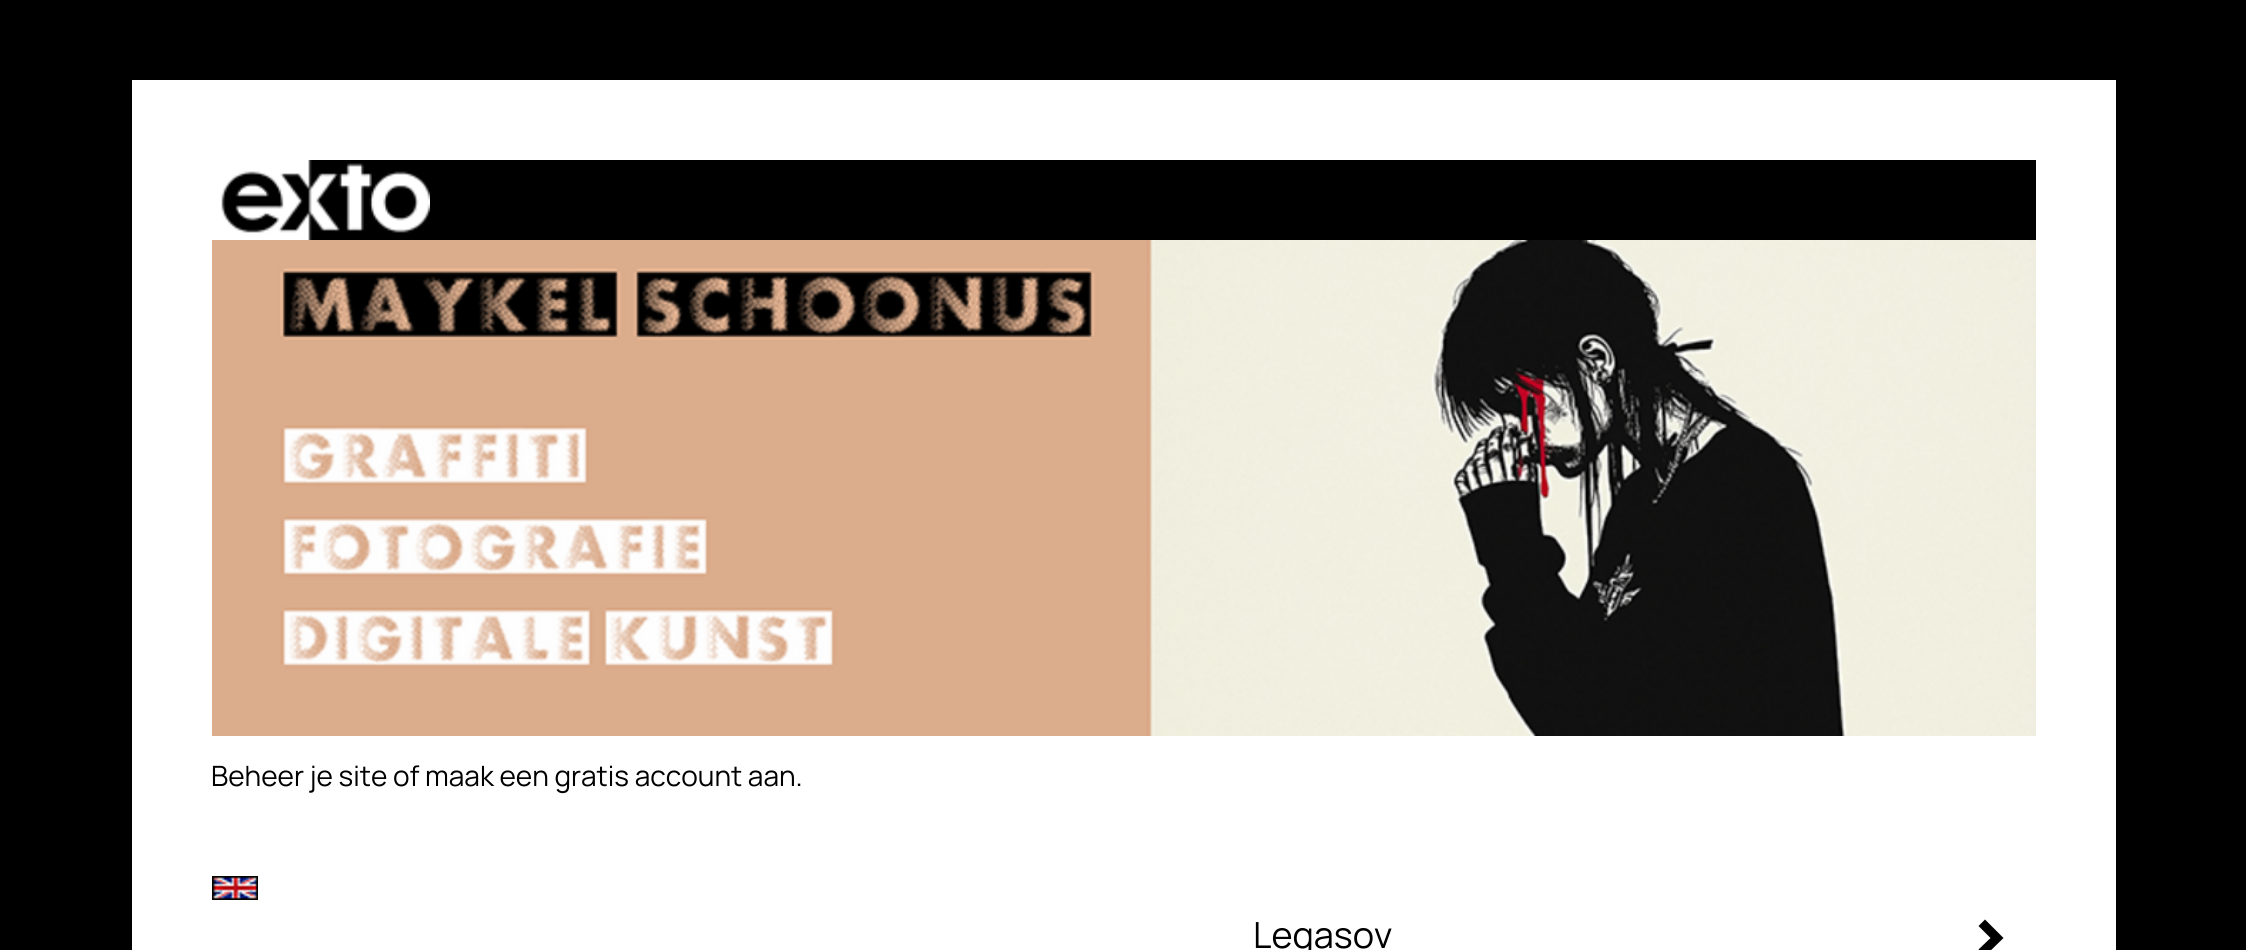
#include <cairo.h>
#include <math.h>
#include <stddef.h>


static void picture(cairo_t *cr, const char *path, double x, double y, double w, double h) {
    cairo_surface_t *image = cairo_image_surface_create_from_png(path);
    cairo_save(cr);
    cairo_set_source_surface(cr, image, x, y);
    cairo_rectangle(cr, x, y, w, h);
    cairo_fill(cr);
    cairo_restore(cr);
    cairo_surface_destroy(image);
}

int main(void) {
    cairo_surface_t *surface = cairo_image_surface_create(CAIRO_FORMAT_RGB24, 2246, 950);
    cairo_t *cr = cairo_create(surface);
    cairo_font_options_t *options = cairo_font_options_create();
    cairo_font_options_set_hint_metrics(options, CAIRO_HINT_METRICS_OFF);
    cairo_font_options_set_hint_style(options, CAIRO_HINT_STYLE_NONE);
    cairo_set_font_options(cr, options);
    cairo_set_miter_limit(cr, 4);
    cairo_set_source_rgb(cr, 0, 0, 0);
    cairo_paint(cr);
    cairo_set_source_rgb(cr, 1, 1, 1);
    cairo_rectangle(cr, 132, 80, 1984, 870);
    cairo_fill(cr);
    cairo_set_source_rgb(cr, 0, 0, 0);
    cairo_rectangle(cr, 221, 160, 1815, 80);
    cairo_fill(cr);
    picture(cr, "img1.png", 212, 160, 218, 80);
    picture(cr, "img2.png", 212, 240, 1824, 496);
    cairo_select_font_face(cr, "Manrope ExtraLight", CAIRO_FONT_SLANT_NORMAL, CAIRO_FONT_WEIGHT_NORMAL);
    cairo_set_font_size(cr, 28);
    cairo_move_to(cr, 211, 786);
    cairo_show_text(cr, "Beheer je site of maak een gratis account aan.");
    picture(cr, "img3.png", 212, 876, 46, 24);
    cairo_set_font_size(cr, 36);
    cairo_move_to(cr, 1253, 948);
    cairo_show_text(cr, "Legasov");
    cairo_new_path(cr);
    cairo_move_to(cr, 2003.5, 938);
    cairo_line_to(cr, 1985, 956);
    cairo_line_to(cr, 1978.5, 949.5);
    cairo_line_to(cr, 1990.5, 938);
    cairo_line_to(cr, 1978.5, 926);
    cairo_line_to(cr, 1985, 919.5);
    cairo_close_path(cr);
    cairo_fill(cr);
    cairo_surface_write_to_png(surface, "page.png");
    cairo_font_options_destroy(options);
    cairo_destroy(cr);
    cairo_surface_destroy(surface);
    return 0;
}
